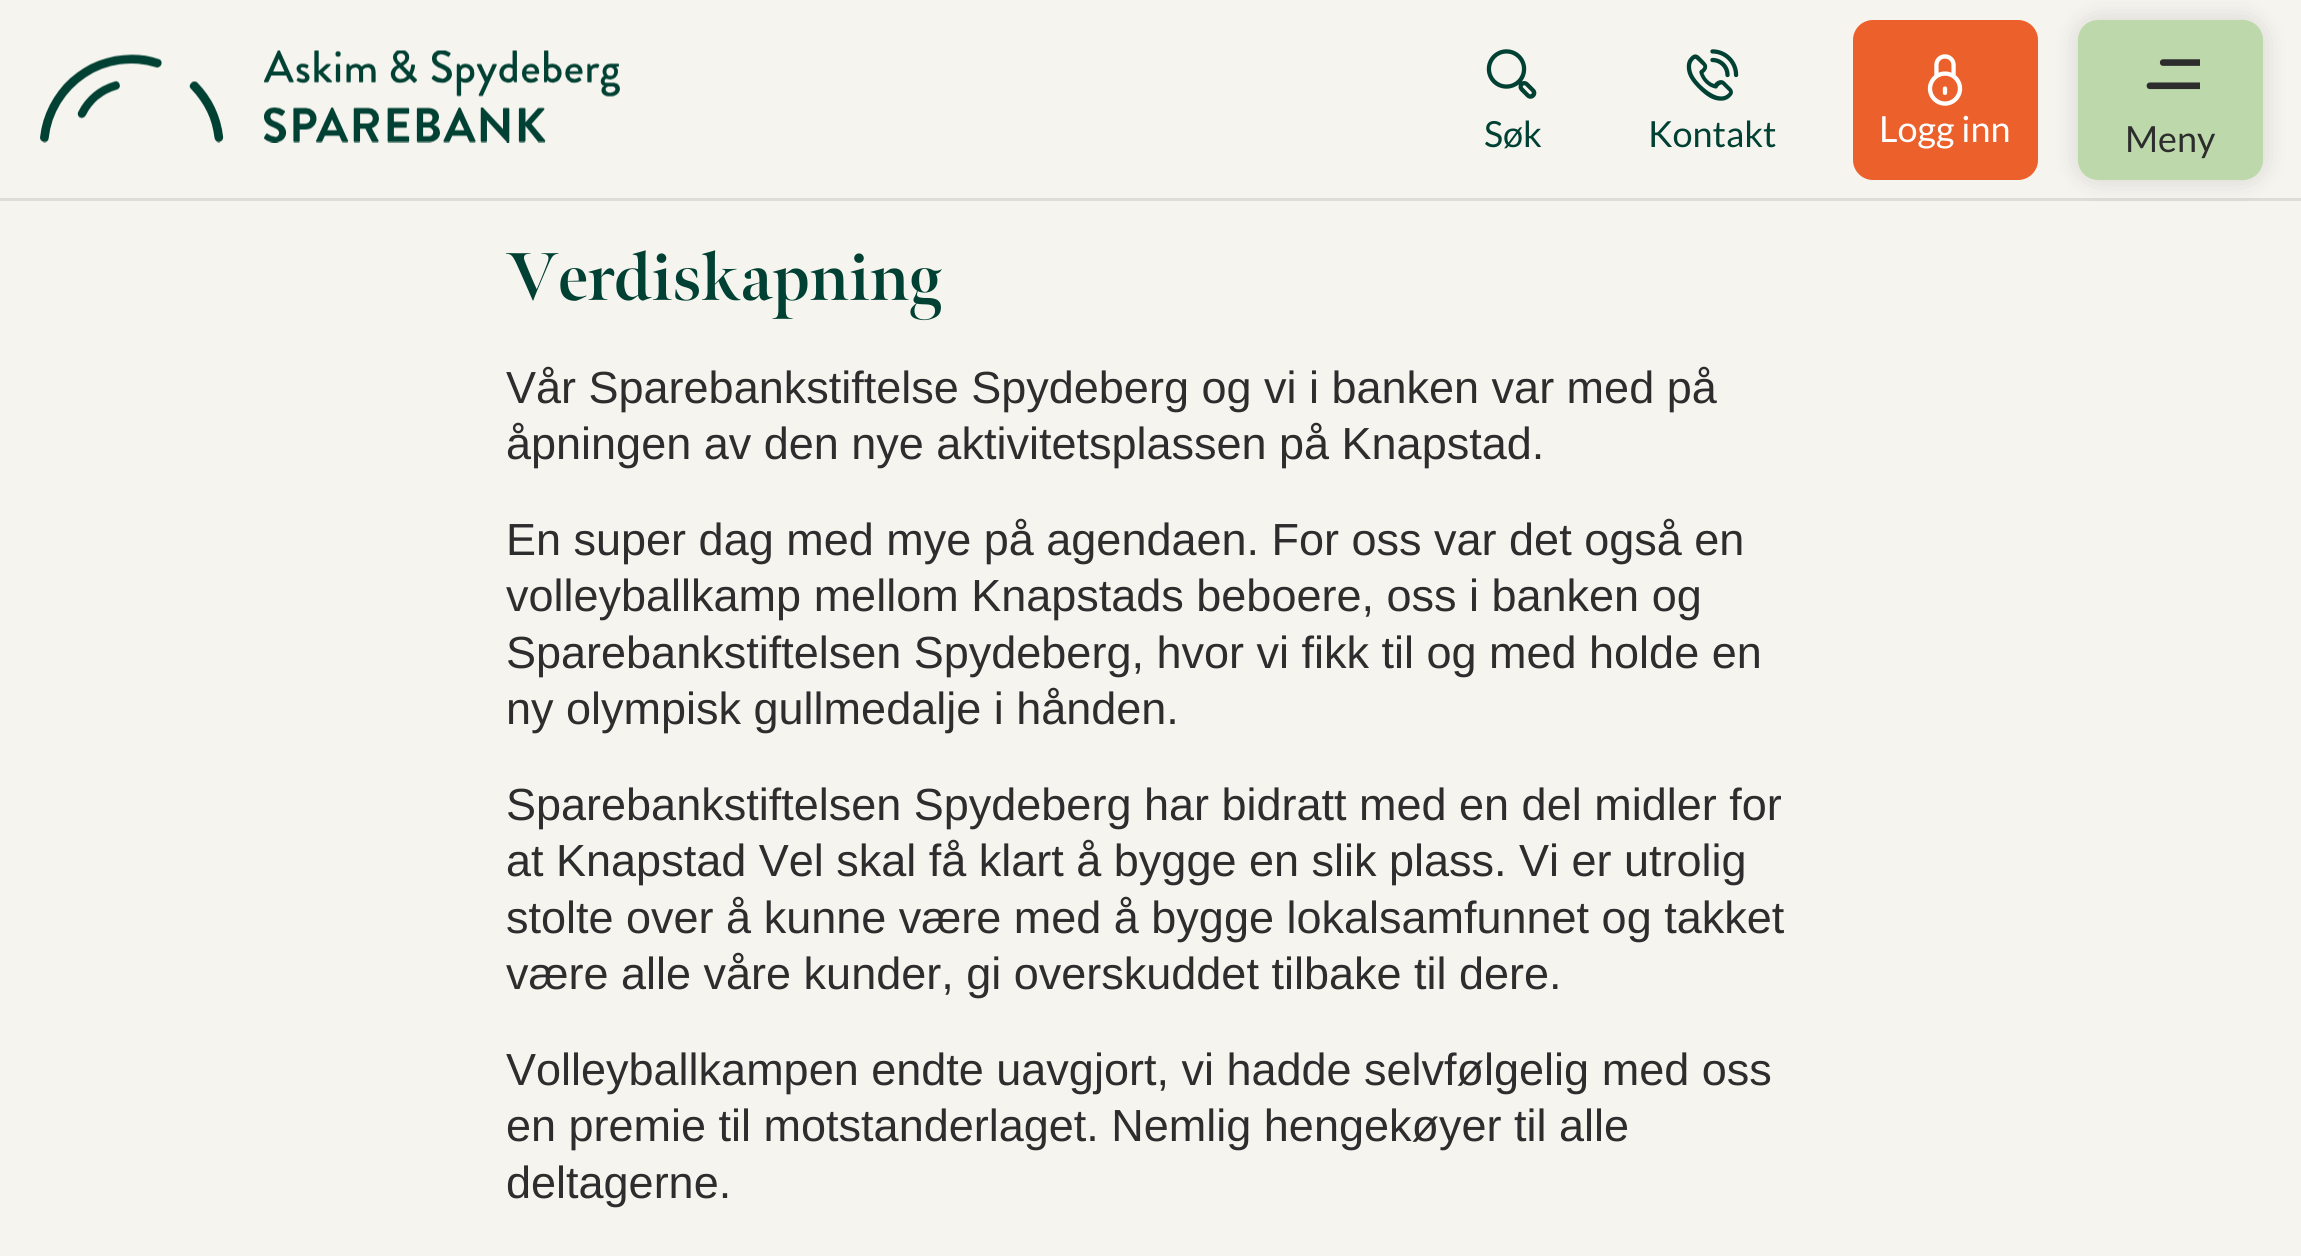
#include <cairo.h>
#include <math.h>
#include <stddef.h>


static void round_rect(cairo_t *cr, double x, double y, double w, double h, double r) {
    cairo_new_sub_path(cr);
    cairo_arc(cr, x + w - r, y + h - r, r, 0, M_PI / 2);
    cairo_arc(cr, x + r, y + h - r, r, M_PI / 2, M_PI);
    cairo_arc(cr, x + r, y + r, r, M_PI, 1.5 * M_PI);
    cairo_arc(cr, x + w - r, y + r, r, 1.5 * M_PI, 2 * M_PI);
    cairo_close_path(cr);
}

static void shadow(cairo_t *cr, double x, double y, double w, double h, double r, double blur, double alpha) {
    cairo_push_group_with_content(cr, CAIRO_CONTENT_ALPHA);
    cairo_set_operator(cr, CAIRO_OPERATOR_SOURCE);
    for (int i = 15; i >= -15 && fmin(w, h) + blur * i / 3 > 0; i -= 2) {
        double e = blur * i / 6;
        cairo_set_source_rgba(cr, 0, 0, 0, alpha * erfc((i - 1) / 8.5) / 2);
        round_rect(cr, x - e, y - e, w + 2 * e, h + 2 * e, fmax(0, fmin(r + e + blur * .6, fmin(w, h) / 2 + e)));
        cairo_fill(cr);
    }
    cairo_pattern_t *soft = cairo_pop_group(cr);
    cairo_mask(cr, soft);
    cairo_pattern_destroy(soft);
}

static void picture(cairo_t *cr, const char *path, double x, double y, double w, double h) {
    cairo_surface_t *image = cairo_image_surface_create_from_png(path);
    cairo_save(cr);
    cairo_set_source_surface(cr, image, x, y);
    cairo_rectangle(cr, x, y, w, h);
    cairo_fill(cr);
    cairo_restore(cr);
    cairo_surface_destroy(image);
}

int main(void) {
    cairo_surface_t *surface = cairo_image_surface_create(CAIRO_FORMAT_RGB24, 2301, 1256);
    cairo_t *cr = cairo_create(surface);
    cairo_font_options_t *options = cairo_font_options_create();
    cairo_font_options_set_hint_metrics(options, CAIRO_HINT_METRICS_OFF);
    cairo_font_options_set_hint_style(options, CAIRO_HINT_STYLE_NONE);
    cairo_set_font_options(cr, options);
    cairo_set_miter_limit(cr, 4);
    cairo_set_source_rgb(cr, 0.961, 0.957, 0.937);
    cairo_paint(cr);
    cairo_set_source_rgb(cr, 0.867, 0.863, 0.843);
    cairo_rectangle(cr, 0, 198, 2301, 3);
    cairo_fill(cr);
    picture(cr, "img1.png", 40, 50, 580, 93);
    picture(cr, "img2.png", 1486, 49, 51, 50);
    cairo_select_font_face(cr, "Lato", CAIRO_FONT_SLANT_NORMAL, CAIRO_FONT_WEIGHT_NORMAL);
    cairo_set_font_size(cr, 36);
    cairo_set_source_rgb(cr, 0.004, 0.255, 0.2);
    cairo_move_to(cr, 1484, 147);
    cairo_show_text(cr, "Søk");
    picture(cr, "img3.png", 1686, 49, 53, 52);
    cairo_move_to(cr, 1648, 147);
    cairo_show_text(cr, "Kontakt");
    cairo_set_source_rgb(cr, 0.922, 0.376, 0.169);
    round_rect(cr, 1853, 20, 185, 160, 20);
    cairo_fill(cr);
    picture(cr, "img4.png", 1927, 54, 36, 52);
    cairo_set_source_rgb(cr, 1, 1, 1);
    cairo_move_to(cr, 1879, 142);
    cairo_show_text(cr, "Logg inn");
    cairo_set_source_rgb(cr, 0, 0, 0);
    shadow(cr, 2078, 20, 185, 160, 20, 12.5, 0.14);
    cairo_set_source_rgb(cr, 0.741, 0.851, 0.671);
    round_rect(cr, 2078, 20, 185, 160, 20);
    cairo_fill(cr);
    picture(cr, "img5.png", 2146, 59, 54, 31);
    cairo_set_source_rgb(cr, 0.176, 0.176, 0.176);
    cairo_move_to(cr, 2125, 152);
    cairo_show_text(cr, "Meny");
    cairo_select_font_face(cr, "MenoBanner", CAIRO_FONT_SLANT_NORMAL, CAIRO_FONT_WEIGHT_BOLD);
    cairo_set_font_size(cr, 67.5);
    cairo_set_source_rgb(cr, 0.004, 0.255, 0.2);
    cairo_move_to(cr, 506, 300);
    cairo_show_text(cr, "Verdiskapning");
    cairo_select_font_face(cr, "Liberation Sans", CAIRO_FONT_SLANT_NORMAL, CAIRO_FONT_WEIGHT_NORMAL);
    cairo_set_font_size(cr, 45);
    cairo_set_source_rgb(cr, 0.176, 0.176, 0.176);
    cairo_move_to(cr, 506, 403);
    cairo_show_text(cr, "Vår Sparebankstiftelse Spydeberg og vi i banken var med på");
    cairo_move_to(cr, 506, 459);
    cairo_show_text(cr, "åpningen av den nye aktivitetsplassen på Knapstad.");
    cairo_move_to(cr, 506, 555);
    cairo_show_text(cr, "En super dag med mye på agendaen. For oss var det også en");
    cairo_move_to(cr, 506, 611);
    cairo_show_text(cr, "volleyballkamp mellom Knapstads beboere, oss i banken og");
    cairo_move_to(cr, 506, 668);
    cairo_show_text(cr, "Sparebankstiftelsen Spydeberg, hvor vi fikk til og med holde en");
    cairo_move_to(cr, 506, 724);
    cairo_show_text(cr, "ny olympisk gullmedalje i hånden.");
    cairo_move_to(cr, 506, 820);
    cairo_show_text(cr, "Sparebankstiftelsen Spydeberg har bidratt med en del midler for");
    cairo_move_to(cr, 506, 876);
    cairo_show_text(cr, "at Knapstad Vel skal få klart å bygge en slik plass. Vi er utrolig");
    cairo_move_to(cr, 506, 933);
    cairo_show_text(cr, "stolte over å kunne være med å bygge lokalsamfunnet og takket");
    cairo_move_to(cr, 506, 989);
    cairo_show_text(cr, "være alle våre kunder, gi overskuddet tilbake til dere.");
    cairo_move_to(cr, 506, 1085);
    cairo_show_text(cr, "Volleyballkampen endte uavgjort, vi hadde selvfølgelig med oss");
    cairo_move_to(cr, 506, 1141);
    cairo_show_text(cr, "en premie til motstanderlaget. Nemlig hengekøyer til alle");
    cairo_move_to(cr, 506, 1198);
    cairo_show_text(cr, "deltagerne.");
    cairo_surface_write_to_png(surface, "page.png");
    cairo_font_options_destroy(options);
    cairo_destroy(cr);
    cairo_surface_destroy(surface);
    return 0;
}
